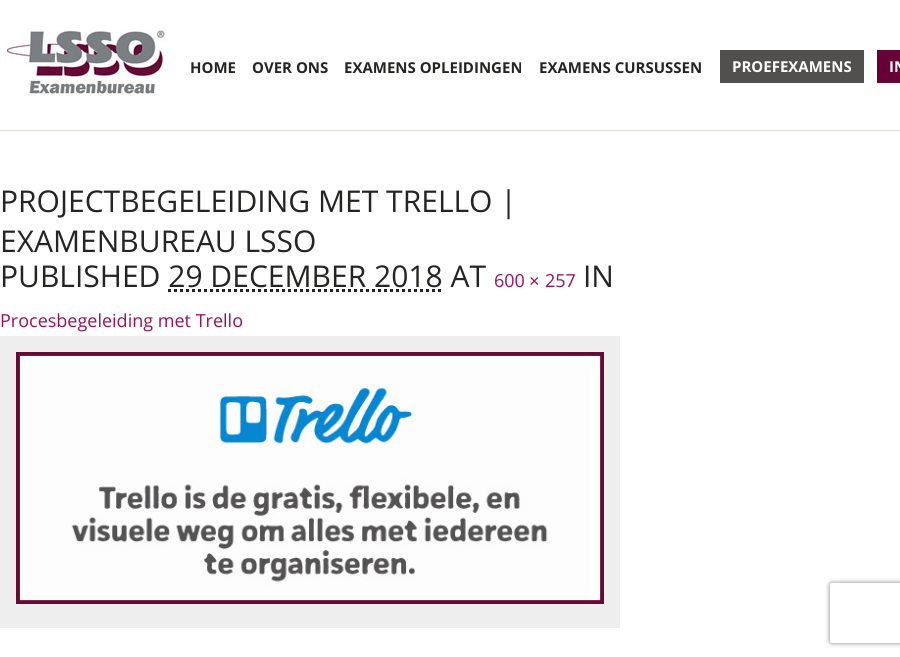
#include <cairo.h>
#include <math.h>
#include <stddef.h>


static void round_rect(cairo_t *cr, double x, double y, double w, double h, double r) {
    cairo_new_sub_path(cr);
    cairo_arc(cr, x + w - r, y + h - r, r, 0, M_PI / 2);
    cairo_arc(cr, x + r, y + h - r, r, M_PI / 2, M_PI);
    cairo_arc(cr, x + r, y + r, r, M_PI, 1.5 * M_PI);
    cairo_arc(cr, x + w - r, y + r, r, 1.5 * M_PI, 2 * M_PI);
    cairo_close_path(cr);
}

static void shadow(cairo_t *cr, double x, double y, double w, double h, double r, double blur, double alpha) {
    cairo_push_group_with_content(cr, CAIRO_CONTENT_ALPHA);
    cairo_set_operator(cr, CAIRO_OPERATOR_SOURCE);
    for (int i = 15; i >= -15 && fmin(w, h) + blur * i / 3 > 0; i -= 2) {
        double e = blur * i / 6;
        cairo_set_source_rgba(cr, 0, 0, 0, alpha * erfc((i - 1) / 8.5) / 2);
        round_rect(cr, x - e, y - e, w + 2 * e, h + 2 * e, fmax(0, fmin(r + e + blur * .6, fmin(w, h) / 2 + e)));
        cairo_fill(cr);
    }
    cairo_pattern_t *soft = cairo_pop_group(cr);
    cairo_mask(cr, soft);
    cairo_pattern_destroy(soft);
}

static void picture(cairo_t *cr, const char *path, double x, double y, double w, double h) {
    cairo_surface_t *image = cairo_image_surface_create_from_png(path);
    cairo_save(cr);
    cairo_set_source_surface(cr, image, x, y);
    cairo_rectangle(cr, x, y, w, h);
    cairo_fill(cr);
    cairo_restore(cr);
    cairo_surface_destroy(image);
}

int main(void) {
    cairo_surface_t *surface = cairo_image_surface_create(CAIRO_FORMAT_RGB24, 900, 657);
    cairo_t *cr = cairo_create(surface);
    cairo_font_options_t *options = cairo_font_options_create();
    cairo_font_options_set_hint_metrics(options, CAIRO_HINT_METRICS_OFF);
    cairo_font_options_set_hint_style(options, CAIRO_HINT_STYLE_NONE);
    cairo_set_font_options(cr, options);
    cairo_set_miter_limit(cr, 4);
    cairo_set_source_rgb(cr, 1, 1, 1);
    cairo_paint(cr);
    cairo_set_source_rgb(cr, 0.89, 0.867, 0.851);
    cairo_rectangle(cr, 0, 130, 900, 1);
    cairo_fill(cr);
    picture(cr, "img1.png", 7, 30, 158, 64);
    cairo_select_font_face(cr, "Open Sans", CAIRO_FONT_SLANT_NORMAL, CAIRO_FONT_WEIGHT_BOLD);
    cairo_set_font_size(cr, 15);
    cairo_set_source_rgb(cr, 0.145, 0.141, 0.137);
    cairo_move_to(cr, 190, 73);
    cairo_show_text(cr, "HOME");
    cairo_move_to(cr, 252, 73);
    cairo_show_text(cr, "OVER ONS");
    cairo_move_to(cr, 344, 73);
    cairo_show_text(cr, "EXAMENS OPLEIDINGEN");
    cairo_move_to(cr, 539, 73);
    cairo_show_text(cr, "EXAMENS CURSUSSEN");
    cairo_set_source_rgb(cr, 0.322, 0.314, 0.306);
    cairo_rectangle(cr, 720, 50, 144, 33);
    cairo_fill(cr);
    cairo_set_source_rgb(cr, 1, 1, 1);
    cairo_move_to(cr, 732, 72);
    cairo_show_text(cr, "PROEFEXAMENS");
    cairo_set_source_rgb(cr, 0.4, 0.008, 0.22);
    cairo_rectangle(cr, 877, 50, 23, 33);
    cairo_fill(cr);
    cairo_set_source_rgb(cr, 1, 1, 1);
    cairo_move_to(cr, 889, 72);
    cairo_show_text(cr, "IN");
    cairo_select_font_face(cr, "Open Sans", CAIRO_FONT_SLANT_NORMAL, CAIRO_FONT_WEIGHT_NORMAL);
    cairo_set_font_size(cr, 30);
    cairo_set_source_rgb(cr, 0.145, 0.141, 0.137);
    cairo_move_to(cr, 0, 212);
    cairo_show_text(cr, "PROJECTBEGELEIDING MET TRELLO |");
    cairo_move_to(cr, 0, 252);
    cairo_show_text(cr, "EXAMENBUREAU LSSO");
    cairo_move_to(cr, 0, 287);
    cairo_show_text(cr, "PUBLISHED 29 DECEMBER 2018 AT");
    cairo_set_font_size(cr, 18);
    cairo_set_source_rgb(cr, 0.604, 0.067, 0.357);
    cairo_move_to(cr, 494, 287);
    cairo_show_text(cr, "600");
    cairo_select_font_face(cr, "Liberation Sans", CAIRO_FONT_SLANT_NORMAL, CAIRO_FONT_WEIGHT_NORMAL);
    cairo_move_to(cr, 529, 287);
    cairo_show_text(cr, "×");
    cairo_select_font_face(cr, "Open Sans", CAIRO_FONT_SLANT_NORMAL, CAIRO_FONT_WEIGHT_NORMAL);
    cairo_move_to(cr, 545, 287);
    cairo_show_text(cr, "257");
    cairo_set_font_size(cr, 30);
    cairo_set_source_rgb(cr, 0.145, 0.141, 0.137);
    cairo_move_to(cr, 583, 287);
    cairo_show_text(cr, "IN");
    cairo_new_path(cr);
    cairo_move_to(cr, 168, 290.5);
    cairo_line_to(cr, 442.5, 290.5);
    cairo_set_line_width(cr, 3);
    cairo_set_dash(cr, (double[]){3, 3}, 2, 0);
    cairo_stroke(cr);
    cairo_set_font_size(cr, 18);
    cairo_set_source_rgb(cr, 0.604, 0.067, 0.357);
    cairo_move_to(cr, 0, 327);
    cairo_show_text(cr, "Procesbegeleiding met Trello");
    cairo_set_source_rgb(cr, 0.933, 0.933, 0.933);
    cairo_rectangle(cr, 0, 336, 620, 292);
    cairo_fill(cr);
    picture(cr, "img2.png", 16, 352, 588, 252);
    cairo_save(cr);
    cairo_set_fill_rule(cr, CAIRO_FILL_RULE_EVEN_ODD);
    cairo_new_path(cr);
    cairo_move_to(cr, 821, 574);
    cairo_line_to(cr, 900, 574);
    cairo_line_to(cr, 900, 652);
    cairo_line_to(cr, 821, 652);
    cairo_close_path(cr);
    cairo_move_to(cr, 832, 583);
    cairo_line_to(cr, 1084, 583);
    cairo_curve_to(cr, 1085, 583, 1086, 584, 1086, 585);
    cairo_line_to(cr, 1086, 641);
    cairo_curve_to(cr, 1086, 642, 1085, 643, 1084, 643);
    cairo_line_to(cr, 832, 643);
    cairo_curve_to(cr, 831, 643, 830, 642, 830, 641);
    cairo_line_to(cr, 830, 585);
    cairo_curve_to(cr, 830, 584, 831, 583, 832, 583);
    cairo_close_path(cr);
    cairo_clip(cr);
    cairo_set_source_rgb(cr, 0.502, 0.502, 0.502);
    shadow(cr, 830, 583, 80, 60, 2, 2.5, 1);
    cairo_restore(cr);
    cairo_surface_write_to_png(surface, "page.png");
    cairo_font_options_destroy(options);
    cairo_destroy(cr);
    cairo_surface_destroy(surface);
    return 0;
}
